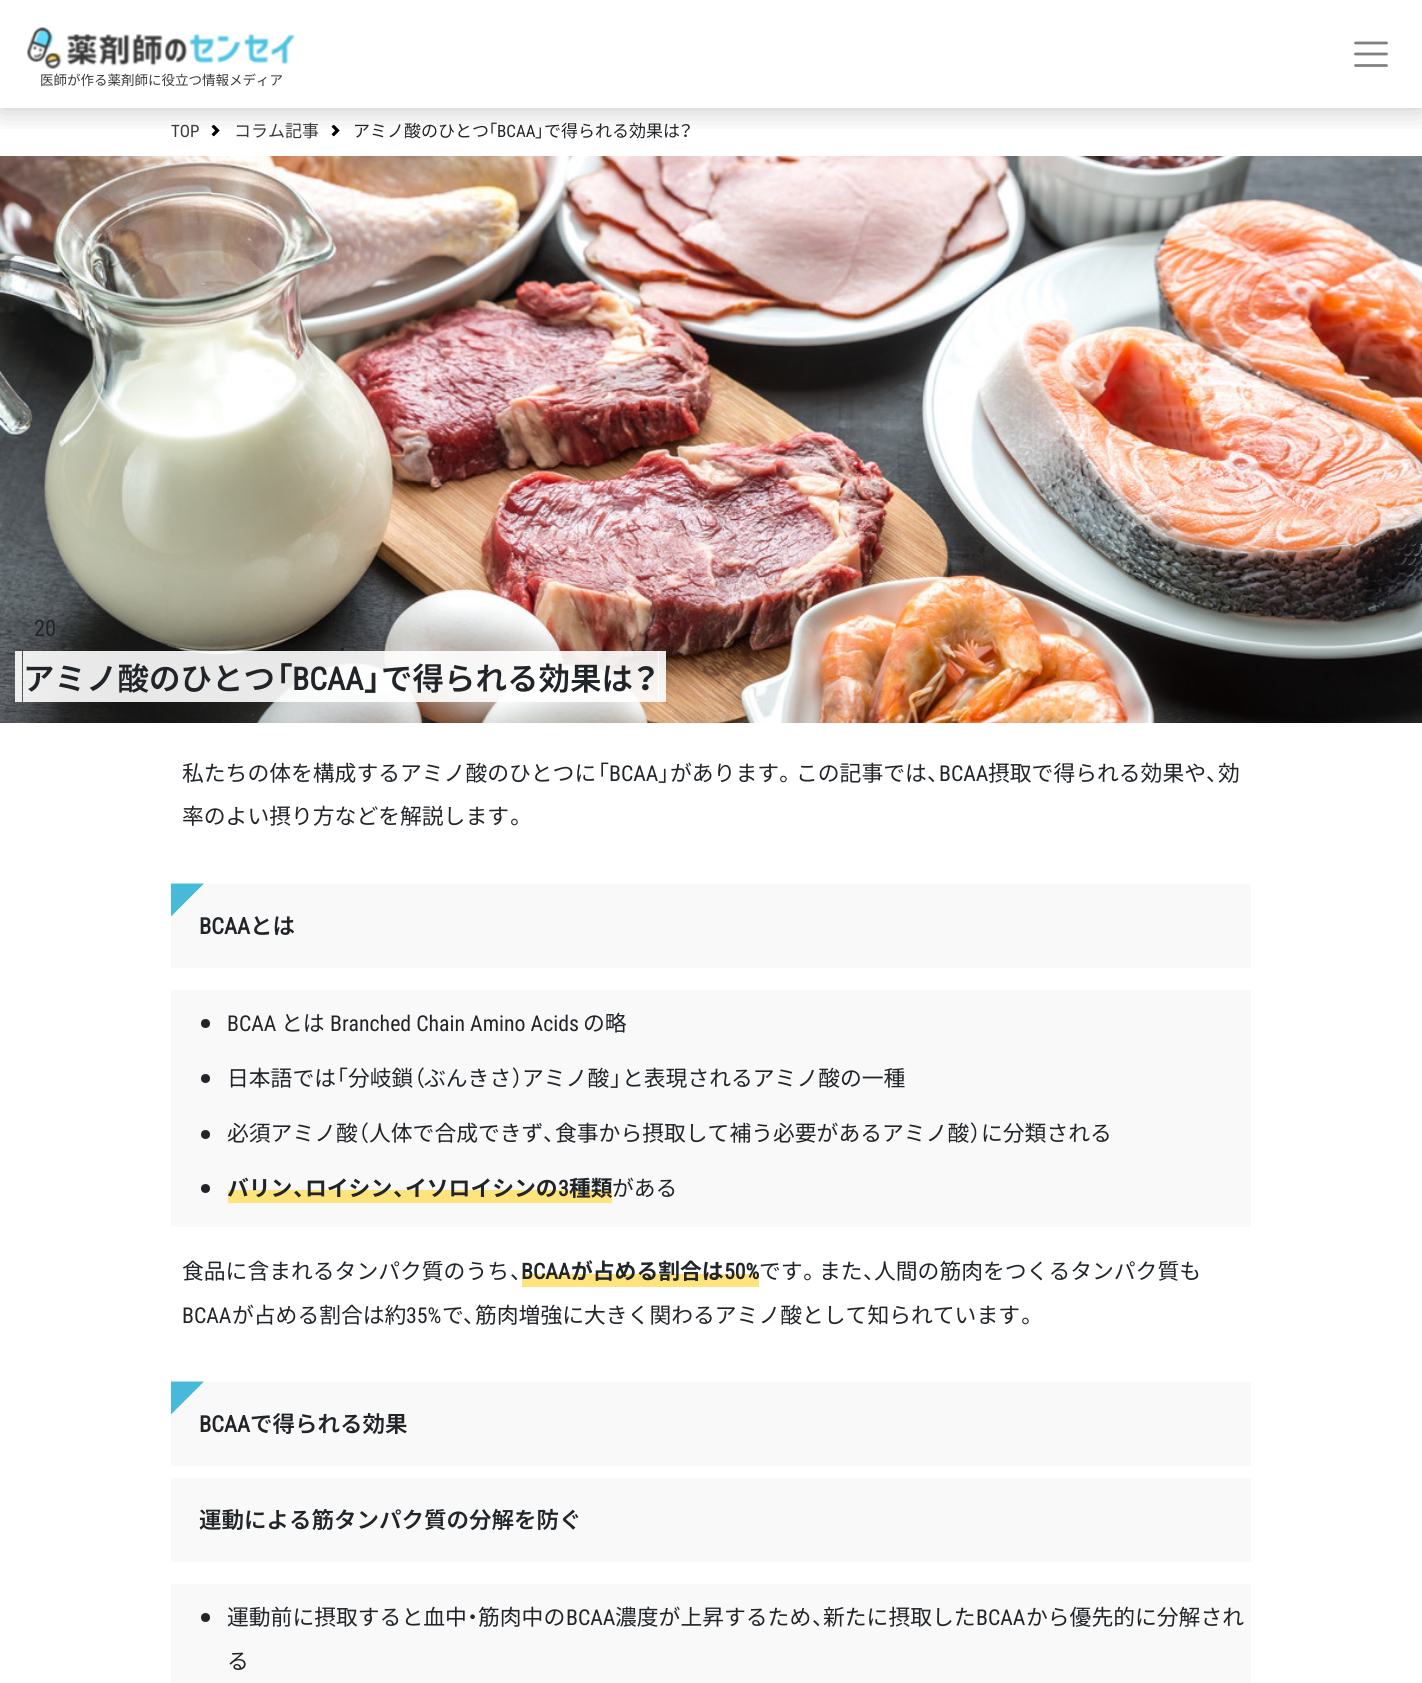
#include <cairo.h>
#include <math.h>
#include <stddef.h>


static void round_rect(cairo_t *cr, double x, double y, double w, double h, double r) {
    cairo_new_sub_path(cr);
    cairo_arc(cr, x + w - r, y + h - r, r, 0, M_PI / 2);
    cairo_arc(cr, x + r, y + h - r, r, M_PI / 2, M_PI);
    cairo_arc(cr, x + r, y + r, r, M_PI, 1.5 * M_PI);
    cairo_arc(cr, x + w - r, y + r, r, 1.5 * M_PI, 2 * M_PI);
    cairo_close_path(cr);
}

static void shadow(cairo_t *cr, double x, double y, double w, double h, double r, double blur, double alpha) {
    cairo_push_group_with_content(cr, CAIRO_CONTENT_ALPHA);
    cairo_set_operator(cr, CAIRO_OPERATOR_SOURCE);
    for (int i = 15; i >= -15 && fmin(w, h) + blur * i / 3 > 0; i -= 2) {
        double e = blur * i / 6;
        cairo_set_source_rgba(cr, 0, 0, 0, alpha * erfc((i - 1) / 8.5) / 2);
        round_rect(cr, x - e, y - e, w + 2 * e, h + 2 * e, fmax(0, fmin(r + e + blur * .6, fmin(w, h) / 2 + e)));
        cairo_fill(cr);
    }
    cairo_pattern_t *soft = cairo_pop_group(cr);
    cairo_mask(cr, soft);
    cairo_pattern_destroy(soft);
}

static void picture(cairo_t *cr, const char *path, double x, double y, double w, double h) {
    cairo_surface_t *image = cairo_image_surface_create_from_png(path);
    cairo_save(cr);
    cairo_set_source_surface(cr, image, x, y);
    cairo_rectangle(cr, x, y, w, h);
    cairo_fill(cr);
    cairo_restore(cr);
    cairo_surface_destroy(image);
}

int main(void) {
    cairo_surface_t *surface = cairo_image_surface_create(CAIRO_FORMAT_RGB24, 1422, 1683);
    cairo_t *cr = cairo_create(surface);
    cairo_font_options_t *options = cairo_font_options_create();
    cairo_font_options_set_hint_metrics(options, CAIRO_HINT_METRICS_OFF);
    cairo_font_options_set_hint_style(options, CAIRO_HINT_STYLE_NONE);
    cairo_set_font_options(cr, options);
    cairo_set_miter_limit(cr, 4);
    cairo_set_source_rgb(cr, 1, 1, 1);
    cairo_paint(cr);
    picture(cr, "img2.png", 211, 125, 9, 12);
    picture(cr, "img2.png", 331, 125, 9, 12);
    cairo_save(cr);
    cairo_rectangle(cr, 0, 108, 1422, 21);
    cairo_clip(cr);
    cairo_set_source_rgb(cr, 0, 0, 0);
    shadow(cr, 0, 0, 1422, 108, 0, 15, 0.25);
    cairo_restore(cr);
    cairo_new_path(cr);
    cairo_move_to(cr, 1355.5, 43);
    cairo_line_to(cr, 1386.5, 43);
    cairo_move_to(cr, 1355.5, 54);
    cairo_line_to(cr, 1386.5, 54);
    cairo_move_to(cr, 1355.5, 65.5);
    cairo_line_to(cr, 1386.5, 65.5);
    cairo_set_source_rgb(cr, 0.502, 0.502, 0.502);
    cairo_set_line_width(cr, 2.8);
    cairo_set_line_cap(cr, CAIRO_LINE_CAP_ROUND);
    cairo_stroke(cr);
    picture(cr, "img1.png", 27, 27, 268, 42);
    cairo_select_font_face(cr, "Noto Sans JP", CAIRO_FONT_SLANT_NORMAL, CAIRO_FONT_WEIGHT_NORMAL);
    cairo_set_font_size(cr, 13.5);
    cairo_set_source_rgb(cr, 0.227, 0.227, 0.227);
    cairo_move_to(cr, 40, 85);
    cairo_show_text(cr, "医師が作る薬剤師に役立つ情報メディア");
    cairo_select_font_face(cr, "Roboto Condensed", CAIRO_FONT_SLANT_NORMAL, CAIRO_FONT_WEIGHT_NORMAL);
    cairo_set_font_size(cr, 17);
    cairo_move_to(cr, 171, 137);
    cairo_show_text(cr, "TOP");
    cairo_select_font_face(cr, "Noto Sans JP", CAIRO_FONT_SLANT_NORMAL, CAIRO_FONT_WEIGHT_NORMAL);
    cairo_move_to(cr, 234, 137);
    cairo_show_text(cr, "コラム記事");
    cairo_set_source_rgb(cr, 0.129, 0.145, 0.161);
    cairo_move_to(cr, 353, 137);
    cairo_show_text(cr, "アミノ酸のひとつ");
    cairo_select_font_face(cr, "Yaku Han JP", CAIRO_FONT_SLANT_NORMAL, CAIRO_FONT_WEIGHT_NORMAL);
    cairo_move_to(cr, 488, 137);
    cairo_show_text(cr, "「");
    cairo_select_font_face(cr, "Roboto Condensed", CAIRO_FONT_SLANT_NORMAL, CAIRO_FONT_WEIGHT_NORMAL);
    cairo_move_to(cr, 497, 137);
    cairo_show_text(cr, "BCAA");
    cairo_select_font_face(cr, "Yaku Han JP", CAIRO_FONT_SLANT_NORMAL, CAIRO_FONT_WEIGHT_NORMAL);
    cairo_move_to(cr, 535, 137);
    cairo_show_text(cr, "」");
    cairo_select_font_face(cr, "Noto Sans JP", CAIRO_FONT_SLANT_NORMAL, CAIRO_FONT_WEIGHT_NORMAL);
    cairo_move_to(cr, 544, 137);
    cairo_show_text(cr, "で得られる効果は");
    cairo_select_font_face(cr, "Yaku Han JP", CAIRO_FONT_SLANT_NORMAL, CAIRO_FONT_WEIGHT_NORMAL);
    cairo_move_to(cr, 679, 137);
    cairo_show_text(cr, "？");
    picture(cr, "img3.png", 0, 156, 1422, 567);
    cairo_select_font_face(cr, "Roboto Condensed", CAIRO_FONT_SLANT_NORMAL, CAIRO_FONT_WEIGHT_NORMAL);
    cairo_set_font_size(cr, 22.5);
    cairo_move_to(cr, 34, 636);
    cairo_show_text(cr, "20");
    cairo_set_source_rgba(cr, 1, 1, 1, 0.9);
    cairo_rectangle(cr, 658, 651, 8, 51);
    cairo_fill(cr);
    cairo_rectangle(cr, 23, 651, 636, 51);
    cairo_fill(cr);
    cairo_select_font_face(cr, "Noto Sans JP SemiBold", CAIRO_FONT_SLANT_NORMAL, CAIRO_FONT_WEIGHT_NORMAL);
    cairo_set_font_size(cr, 31.5);
    cairo_set_source_rgb(cr, 0.129, 0.145, 0.161);
    cairo_move_to(cr, 23, 690);
    cairo_show_text(cr, "アミノ酸のひとつ");
    cairo_set_source_rgba(cr, 1, 1, 1, 0.9);
    cairo_rectangle(cr, 15, 651, 7, 51);
    cairo_fill(cr);
    cairo_select_font_face(cr, "Yaku Han JP", CAIRO_FONT_SLANT_NORMAL, CAIRO_FONT_WEIGHT_BOLD);
    cairo_set_source_rgb(cr, 0.129, 0.145, 0.161);
    cairo_move_to(cr, 275, 690);
    cairo_show_text(cr, "「");
    cairo_select_font_face(cr, "Roboto Condensed", CAIRO_FONT_SLANT_NORMAL, CAIRO_FONT_WEIGHT_BOLD);
    cairo_move_to(cr, 292, 690);
    cairo_show_text(cr, "BCAA");
    cairo_select_font_face(cr, "Yaku Han JP", CAIRO_FONT_SLANT_NORMAL, CAIRO_FONT_WEIGHT_BOLD);
    cairo_move_to(cr, 364, 690);
    cairo_show_text(cr, "」");
    cairo_select_font_face(cr, "Noto Sans JP SemiBold", CAIRO_FONT_SLANT_NORMAL, CAIRO_FONT_WEIGHT_NORMAL);
    cairo_move_to(cr, 381, 690);
    cairo_show_text(cr, "で得られる効果は");
    cairo_select_font_face(cr, "Yaku Han JP", CAIRO_FONT_SLANT_NORMAL, CAIRO_FONT_WEIGHT_BOLD);
    cairo_move_to(cr, 633, 690);
    cairo_show_text(cr, "？");
    cairo_select_font_face(cr, "Noto Sans JP", CAIRO_FONT_SLANT_NORMAL, CAIRO_FONT_WEIGHT_NORMAL);
    cairo_set_font_size(cr, 21.8);
    cairo_move_to(cr, 182, 781);
    cairo_show_text(cr, "私たちの体を構成するアミノ酸のひとつに");
    cairo_select_font_face(cr, "Yaku Han JP", CAIRO_FONT_SLANT_NORMAL, CAIRO_FONT_WEIGHT_NORMAL);
    cairo_move_to(cr, 597, 781);
    cairo_show_text(cr, "「");
    cairo_select_font_face(cr, "Roboto Condensed", CAIRO_FONT_SLANT_NORMAL, CAIRO_FONT_WEIGHT_NORMAL);
    cairo_move_to(cr, 609, 781);
    cairo_show_text(cr, "BCAA");
    cairo_select_font_face(cr, "Yaku Han JP", CAIRO_FONT_SLANT_NORMAL, CAIRO_FONT_WEIGHT_NORMAL);
    cairo_move_to(cr, 658, 781);
    cairo_show_text(cr, "」");
    cairo_select_font_face(cr, "Noto Sans JP", CAIRO_FONT_SLANT_NORMAL, CAIRO_FONT_WEIGHT_NORMAL);
    cairo_move_to(cr, 670, 781);
    cairo_show_text(cr, "があります");
    cairo_select_font_face(cr, "Yaku Han JP", CAIRO_FONT_SLANT_NORMAL, CAIRO_FONT_WEIGHT_NORMAL);
    cairo_move_to(cr, 779, 781);
    cairo_show_text(cr, "。");
    cairo_select_font_face(cr, "Noto Sans JP", CAIRO_FONT_SLANT_NORMAL, CAIRO_FONT_WEIGHT_NORMAL);
    cairo_move_to(cr, 796, 781);
    cairo_show_text(cr, "この記事では");
    cairo_select_font_face(cr, "Yaku Han JP", CAIRO_FONT_SLANT_NORMAL, CAIRO_FONT_WEIGHT_NORMAL);
    cairo_move_to(cr, 927, 781);
    cairo_show_text(cr, "、");
    cairo_select_font_face(cr, "Roboto Condensed", CAIRO_FONT_SLANT_NORMAL, CAIRO_FONT_WEIGHT_NORMAL);
    cairo_move_to(cr, 939, 781);
    cairo_show_text(cr, "BCAA");
    cairo_select_font_face(cr, "Noto Sans JP", CAIRO_FONT_SLANT_NORMAL, CAIRO_FONT_WEIGHT_NORMAL);
    cairo_move_to(cr, 988, 781);
    cairo_show_text(cr, "摂取で得られる効果や");
    cairo_select_font_face(cr, "Yaku Han JP", CAIRO_FONT_SLANT_NORMAL, CAIRO_FONT_WEIGHT_NORMAL);
    cairo_move_to(cr, 1206, 781);
    cairo_show_text(cr, "、");
    cairo_select_font_face(cr, "Noto Sans JP", CAIRO_FONT_SLANT_NORMAL, CAIRO_FONT_WEIGHT_NORMAL);
    cairo_move_to(cr, 1218, 781);
    cairo_show_text(cr, "効");
    cairo_move_to(cr, 182, 824);
    cairo_show_text(cr, "率のよい摂り方などを解説します");
    cairo_select_font_face(cr, "Yaku Han JP", CAIRO_FONT_SLANT_NORMAL, CAIRO_FONT_WEIGHT_NORMAL);
    cairo_move_to(cr, 510, 824);
    cairo_show_text(cr, "。");
    cairo_set_source_rgb(cr, 0.976, 0.976, 0.976);
    cairo_rectangle(cr, 171, 884, 1080, 84);
    cairo_fill(cr);
    cairo_set_source_rgb(cr, 0.275, 0.729, 0.847);
    cairo_new_path(cr);
    cairo_move_to(cr, 171, 883.5);
    cairo_line_to(cr, 204, 883.5);
    cairo_line_to(cr, 171, 916.5);
    cairo_close_path(cr);
    cairo_fill(cr);
    cairo_select_font_face(cr, "Roboto Condensed", CAIRO_FONT_SLANT_NORMAL, CAIRO_FONT_WEIGHT_BOLD);
    cairo_set_font_size(cr, 22.5);
    cairo_set_source_rgb(cr, 0.129, 0.145, 0.161);
    cairo_move_to(cr, 199, 934);
    cairo_show_text(cr, "BCAA");
    cairo_select_font_face(cr, "Noto Sans JP SemiBold", CAIRO_FONT_SLANT_NORMAL, CAIRO_FONT_WEIGHT_NORMAL);
    cairo_move_to(cr, 250, 934);
    cairo_show_text(cr, "とは");
    cairo_set_source_rgb(cr, 0.976, 0.976, 0.976);
    cairo_rectangle(cr, 171, 990, 1080, 237);
    cairo_fill(cr);
    cairo_set_source_rgb(cr, 0.129, 0.145, 0.161);
    cairo_arc(cr, 205.5, 1023.5, 4.5, 0, 2 * M_PI);
    cairo_fill(cr);
    cairo_select_font_face(cr, "Roboto Condensed", CAIRO_FONT_SLANT_NORMAL, CAIRO_FONT_WEIGHT_NORMAL);
    cairo_set_font_size(cr, 21.8);
    cairo_move_to(cr, 227, 1031);
    cairo_show_text(cr, "BCAA");
    cairo_select_font_face(cr, "Noto Sans JP", CAIRO_FONT_SLANT_NORMAL, CAIRO_FONT_WEIGHT_NORMAL);
    cairo_move_to(cr, 281, 1031);
    cairo_show_text(cr, "とは");
    cairo_select_font_face(cr, "Roboto Condensed", CAIRO_FONT_SLANT_NORMAL, CAIRO_FONT_WEIGHT_NORMAL);
    cairo_move_to(cr, 330, 1031);
    cairo_show_text(cr, "Branched Chain Amino Acids");
    cairo_select_font_face(cr, "Noto Sans JP", CAIRO_FONT_SLANT_NORMAL, CAIRO_FONT_WEIGHT_NORMAL);
    cairo_move_to(cr, 583, 1031);
    cairo_show_text(cr, "の略");
    cairo_new_path(cr);
    cairo_arc(cr, 205.5, 1078.5, 4.5, 0, 2 * M_PI);
    cairo_fill(cr);
    cairo_move_to(cr, 227, 1086);
    cairo_show_text(cr, "日本語では");
    cairo_select_font_face(cr, "Yaku Han JP", CAIRO_FONT_SLANT_NORMAL, CAIRO_FONT_WEIGHT_NORMAL);
    cairo_move_to(cr, 336, 1086);
    cairo_show_text(cr, "「");
    cairo_select_font_face(cr, "Noto Sans JP", CAIRO_FONT_SLANT_NORMAL, CAIRO_FONT_WEIGHT_NORMAL);
    cairo_move_to(cr, 348, 1086);
    cairo_show_text(cr, "分岐鎖");
    cairo_select_font_face(cr, "Yaku Han JP", CAIRO_FONT_SLANT_NORMAL, CAIRO_FONT_WEIGHT_NORMAL);
    cairo_move_to(cr, 414, 1086);
    cairo_show_text(cr, "（");
    cairo_select_font_face(cr, "Noto Sans JP", CAIRO_FONT_SLANT_NORMAL, CAIRO_FONT_WEIGHT_NORMAL);
    cairo_move_to(cr, 424, 1086);
    cairo_show_text(cr, "ぶんきさ");
    cairo_select_font_face(cr, "Yaku Han JP", CAIRO_FONT_SLANT_NORMAL, CAIRO_FONT_WEIGHT_NORMAL);
    cairo_move_to(cr, 512, 1086);
    cairo_show_text(cr, "）");
    cairo_select_font_face(cr, "Noto Sans JP", CAIRO_FONT_SLANT_NORMAL, CAIRO_FONT_WEIGHT_NORMAL);
    cairo_move_to(cr, 522, 1086);
    cairo_show_text(cr, "アミノ酸");
    cairo_select_font_face(cr, "Yaku Han JP", CAIRO_FONT_SLANT_NORMAL, CAIRO_FONT_WEIGHT_NORMAL);
    cairo_move_to(cr, 610, 1086);
    cairo_show_text(cr, "」");
    cairo_select_font_face(cr, "Noto Sans JP", CAIRO_FONT_SLANT_NORMAL, CAIRO_FONT_WEIGHT_NORMAL);
    cairo_move_to(cr, 622, 1086);
    cairo_show_text(cr, "と表現されるアミノ酸の一種");
    cairo_new_path(cr);
    cairo_arc(cr, 205.5, 1134.5, 4.5, 0, 2 * M_PI);
    cairo_fill(cr);
    cairo_move_to(cr, 227, 1141);
    cairo_show_text(cr, "必須アミノ酸");
    cairo_select_font_face(cr, "Yaku Han JP", CAIRO_FONT_SLANT_NORMAL, CAIRO_FONT_WEIGHT_NORMAL);
    cairo_move_to(cr, 358, 1141);
    cairo_show_text(cr, "（");
    cairo_select_font_face(cr, "Noto Sans JP", CAIRO_FONT_SLANT_NORMAL, CAIRO_FONT_WEIGHT_NORMAL);
    cairo_move_to(cr, 369, 1141);
    cairo_show_text(cr, "人体で合成できず");
    cairo_select_font_face(cr, "Yaku Han JP", CAIRO_FONT_SLANT_NORMAL, CAIRO_FONT_WEIGHT_NORMAL);
    cairo_move_to(cr, 543, 1141);
    cairo_show_text(cr, "、");
    cairo_select_font_face(cr, "Noto Sans JP", CAIRO_FONT_SLANT_NORMAL, CAIRO_FONT_WEIGHT_NORMAL);
    cairo_move_to(cr, 555, 1141);
    cairo_show_text(cr, "食事から摂取して補う必要があるアミノ酸");
    cairo_select_font_face(cr, "Yaku Han JP", CAIRO_FONT_SLANT_NORMAL, CAIRO_FONT_WEIGHT_NORMAL);
    cairo_move_to(cr, 970, 1141);
    cairo_show_text(cr, "）");
    cairo_select_font_face(cr, "Noto Sans JP", CAIRO_FONT_SLANT_NORMAL, CAIRO_FONT_WEIGHT_NORMAL);
    cairo_move_to(cr, 981, 1141);
    cairo_show_text(cr, "に分類される");
    cairo_new_path(cr);
    cairo_arc(cr, 205.5, 1188.5, 4.5, 0, 2 * M_PI);
    cairo_fill(cr);
    cairo_set_source_rgb(cr, 1, 0.894, 0.494);
    cairo_rectangle(cr, 228, 1190, 384, 13);
    cairo_fill(cr);
    cairo_select_font_face(cr, "Noto Sans JP", CAIRO_FONT_SLANT_NORMAL, CAIRO_FONT_WEIGHT_BOLD);
    cairo_set_source_rgb(cr, 0.129, 0.145, 0.161);
    cairo_move_to(cr, 227, 1196);
    cairo_show_text(cr, "バリン");
    cairo_move_to(cr, 305, 1196);
    cairo_show_text(cr, "ロイシン");
    cairo_move_to(cr, 405, 1196);
    cairo_show_text(cr, "イソロイシンの");
    cairo_select_font_face(cr, "Roboto Condensed", CAIRO_FONT_SLANT_NORMAL, CAIRO_FONT_WEIGHT_BOLD);
    cairo_move_to(cr, 558, 1196);
    cairo_show_text(cr, "3");
    cairo_select_font_face(cr, "Noto Sans JP", CAIRO_FONT_SLANT_NORMAL, CAIRO_FONT_WEIGHT_BOLD);
    cairo_move_to(cr, 569, 1196);
    cairo_show_text(cr, "種類");
    cairo_select_font_face(cr, "Noto Sans JP", CAIRO_FONT_SLANT_NORMAL, CAIRO_FONT_WEIGHT_NORMAL);
    cairo_move_to(cr, 612, 1196);
    cairo_show_text(cr, "がある");
    cairo_select_font_face(cr, "Yaku Han JP", CAIRO_FONT_SLANT_NORMAL, CAIRO_FONT_WEIGHT_BOLD);
    cairo_move_to(cr, 293, 1196);
    cairo_show_text(cr, "、");
    cairo_move_to(cr, 393, 1196);
    cairo_show_text(cr, "、");
    cairo_select_font_face(cr, "Noto Sans JP", CAIRO_FONT_SLANT_NORMAL, CAIRO_FONT_WEIGHT_NORMAL);
    cairo_move_to(cr, 182, 1279);
    cairo_show_text(cr, "食品に含まれるタンパク質のうち");
    cairo_select_font_face(cr, "Yaku Han JP", CAIRO_FONT_SLANT_NORMAL, CAIRO_FONT_WEIGHT_NORMAL);
    cairo_move_to(cr, 510, 1279);
    cairo_show_text(cr, "、");
    cairo_set_source_rgb(cr, 1, 0.894, 0.494);
    cairo_rectangle(cr, 522, 1274, 237, 13);
    cairo_fill(cr);
    cairo_select_font_face(cr, "Roboto Condensed", CAIRO_FONT_SLANT_NORMAL, CAIRO_FONT_WEIGHT_BOLD);
    cairo_set_source_rgb(cr, 0.129, 0.145, 0.161);
    cairo_move_to(cr, 521, 1279);
    cairo_show_text(cr, "BCAA");
    cairo_select_font_face(cr, "Noto Sans JP", CAIRO_FONT_SLANT_NORMAL, CAIRO_FONT_WEIGHT_BOLD);
    cairo_move_to(cr, 571, 1279);
    cairo_show_text(cr, "が占める割合は");
    cairo_select_font_face(cr, "Roboto Condensed", CAIRO_FONT_SLANT_NORMAL, CAIRO_FONT_WEIGHT_BOLD);
    cairo_move_to(cr, 724, 1279);
    cairo_show_text(cr, "50%");
    cairo_select_font_face(cr, "Noto Sans JP", CAIRO_FONT_SLANT_NORMAL, CAIRO_FONT_WEIGHT_NORMAL);
    cairo_move_to(cr, 759, 1279);
    cairo_show_text(cr, "です");
    cairo_select_font_face(cr, "Yaku Han JP", CAIRO_FONT_SLANT_NORMAL, CAIRO_FONT_WEIGHT_NORMAL);
    cairo_move_to(cr, 803, 1279);
    cairo_show_text(cr, "。");
    cairo_select_font_face(cr, "Noto Sans JP", CAIRO_FONT_SLANT_NORMAL, CAIRO_FONT_WEIGHT_NORMAL);
    cairo_move_to(cr, 819, 1279);
    cairo_show_text(cr, "また");
    cairo_select_font_face(cr, "Yaku Han JP", CAIRO_FONT_SLANT_NORMAL, CAIRO_FONT_WEIGHT_NORMAL);
    cairo_move_to(cr, 863, 1279);
    cairo_show_text(cr, "、");
    cairo_select_font_face(cr, "Noto Sans JP", CAIRO_FONT_SLANT_NORMAL, CAIRO_FONT_WEIGHT_NORMAL);
    cairo_move_to(cr, 874, 1279);
    cairo_show_text(cr, "人間の筋肉をつくるタンパク質も");
    cairo_select_font_face(cr, "Roboto Condensed", CAIRO_FONT_SLANT_NORMAL, CAIRO_FONT_WEIGHT_NORMAL);
    cairo_move_to(cr, 182, 1323);
    cairo_show_text(cr, "BCAA");
    cairo_select_font_face(cr, "Noto Sans JP", CAIRO_FONT_SLANT_NORMAL, CAIRO_FONT_WEIGHT_NORMAL);
    cairo_move_to(cr, 232, 1323);
    cairo_show_text(cr, "が占める割合は約");
    cairo_select_font_face(cr, "Roboto Condensed", CAIRO_FONT_SLANT_NORMAL, CAIRO_FONT_WEIGHT_NORMAL);
    cairo_move_to(cr, 406, 1323);
    cairo_show_text(cr, "35%");
    cairo_select_font_face(cr, "Noto Sans JP", CAIRO_FONT_SLANT_NORMAL, CAIRO_FONT_WEIGHT_NORMAL);
    cairo_move_to(cr, 442, 1323);
    cairo_show_text(cr, "で");
    cairo_select_font_face(cr, "Yaku Han JP", CAIRO_FONT_SLANT_NORMAL, CAIRO_FONT_WEIGHT_NORMAL);
    cairo_move_to(cr, 463, 1323);
    cairo_show_text(cr, "、");
    cairo_select_font_face(cr, "Noto Sans JP", CAIRO_FONT_SLANT_NORMAL, CAIRO_FONT_WEIGHT_NORMAL);
    cairo_move_to(cr, 475, 1323);
    cairo_show_text(cr, "筋肉増強に大きく関わるアミノ酸として知られています");
    cairo_select_font_face(cr, "Yaku Han JP", CAIRO_FONT_SLANT_NORMAL, CAIRO_FONT_WEIGHT_NORMAL);
    cairo_move_to(cr, 1021, 1323);
    cairo_show_text(cr, "。");
    cairo_set_source_rgb(cr, 0.976, 0.976, 0.976);
    cairo_rectangle(cr, 171, 1382, 1080, 84);
    cairo_fill(cr);
    cairo_set_source_rgb(cr, 0.275, 0.729, 0.847);
    cairo_new_path(cr);
    cairo_move_to(cr, 171, 1381.5);
    cairo_line_to(cr, 204, 1381.5);
    cairo_line_to(cr, 171, 1414.5);
    cairo_close_path(cr);
    cairo_fill(cr);
    cairo_select_font_face(cr, "Roboto Condensed", CAIRO_FONT_SLANT_NORMAL, CAIRO_FONT_WEIGHT_BOLD);
    cairo_set_font_size(cr, 22.5);
    cairo_set_source_rgb(cr, 0.129, 0.145, 0.161);
    cairo_move_to(cr, 199, 1432);
    cairo_show_text(cr, "BCAA");
    cairo_select_font_face(cr, "Noto Sans JP SemiBold", CAIRO_FONT_SLANT_NORMAL, CAIRO_FONT_WEIGHT_NORMAL);
    cairo_move_to(cr, 250, 1432);
    cairo_show_text(cr, "で得られる効果");
    cairo_set_source_rgb(cr, 0.976, 0.976, 0.976);
    cairo_rectangle(cr, 171, 1478, 1080, 84);
    cairo_fill(cr);
    cairo_set_source_rgb(cr, 0.129, 0.145, 0.161);
    cairo_move_to(cr, 199, 1528);
    cairo_show_text(cr, "運動による筋タンパク質の分解を防ぐ");
    cairo_set_source_rgb(cr, 0.976, 0.976, 0.976);
    cairo_rectangle(cr, 171, 1584, 1080, 99);
    cairo_fill(cr);
    cairo_set_source_rgb(cr, 0.129, 0.145, 0.161);
    cairo_arc(cr, 205.5, 1617.5, 4.5, 0, 2 * M_PI);
    cairo_fill(cr);
    cairo_select_font_face(cr, "Noto Sans JP", CAIRO_FONT_SLANT_NORMAL, CAIRO_FONT_WEIGHT_NORMAL);
    cairo_set_font_size(cr, 21.8);
    cairo_move_to(cr, 227, 1625);
    cairo_show_text(cr, "運動前に摂取すると血中");
    cairo_select_font_face(cr, "Yaku Han JP", CAIRO_FONT_SLANT_NORMAL, CAIRO_FONT_WEIGHT_NORMAL);
    cairo_move_to(cr, 467, 1625);
    cairo_show_text(cr, "・");
    cairo_select_font_face(cr, "Noto Sans JP", CAIRO_FONT_SLANT_NORMAL, CAIRO_FONT_WEIGHT_NORMAL);
    cairo_move_to(cr, 478, 1625);
    cairo_show_text(cr, "筋肉中の");
    cairo_select_font_face(cr, "Roboto Condensed", CAIRO_FONT_SLANT_NORMAL, CAIRO_FONT_WEIGHT_NORMAL);
    cairo_move_to(cr, 566, 1625);
    cairo_show_text(cr, "BCAA");
    cairo_select_font_face(cr, "Noto Sans JP", CAIRO_FONT_SLANT_NORMAL, CAIRO_FONT_WEIGHT_NORMAL);
    cairo_move_to(cr, 615, 1625);
    cairo_show_text(cr, "濃度が上昇するため");
    cairo_move_to(cr, 823, 1625);
    cairo_show_text(cr, "新たに摂取した");
    cairo_select_font_face(cr, "Roboto Condensed", CAIRO_FONT_SLANT_NORMAL, CAIRO_FONT_WEIGHT_NORMAL);
    cairo_move_to(cr, 976, 1625);
    cairo_show_text(cr, "BCAA");
    cairo_select_font_face(cr, "Noto Sans JP", CAIRO_FONT_SLANT_NORMAL, CAIRO_FONT_WEIGHT_NORMAL);
    cairo_move_to(cr, 1026, 1625);
    cairo_show_text(cr, "から優先的に分解され");
    cairo_select_font_face(cr, "Yaku Han JP", CAIRO_FONT_SLANT_NORMAL, CAIRO_FONT_WEIGHT_NORMAL);
    cairo_move_to(cr, 812, 1625);
    cairo_show_text(cr, "、");
    cairo_select_font_face(cr, "Noto Sans JP", CAIRO_FONT_SLANT_NORMAL, CAIRO_FONT_WEIGHT_NORMAL);
    cairo_move_to(cr, 227, 1669);
    cairo_show_text(cr, "る");
    cairo_surface_write_to_png(surface, "page.png");
    cairo_font_options_destroy(options);
    cairo_destroy(cr);
    cairo_surface_destroy(surface);
    return 0;
}
